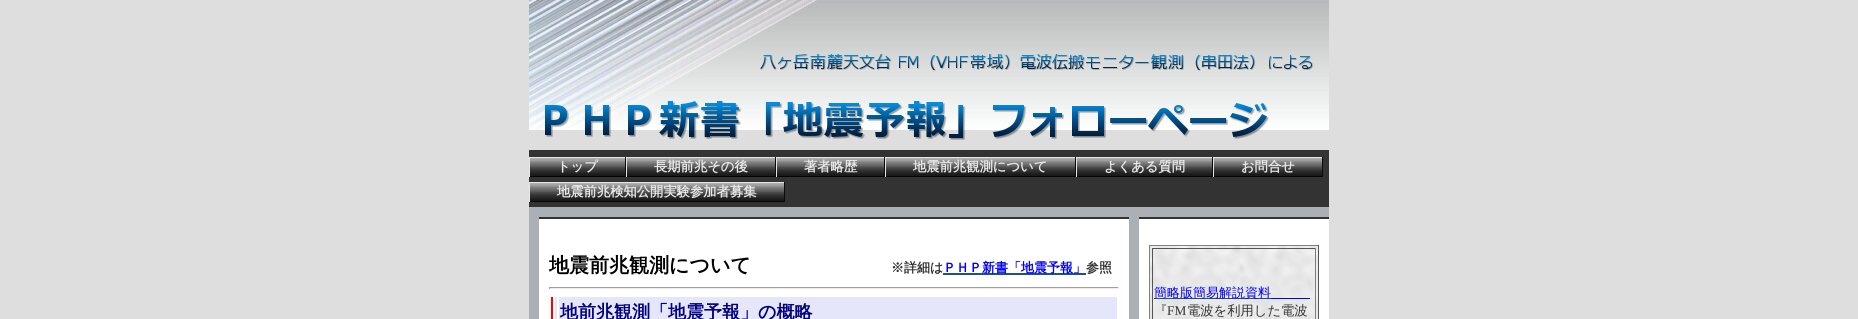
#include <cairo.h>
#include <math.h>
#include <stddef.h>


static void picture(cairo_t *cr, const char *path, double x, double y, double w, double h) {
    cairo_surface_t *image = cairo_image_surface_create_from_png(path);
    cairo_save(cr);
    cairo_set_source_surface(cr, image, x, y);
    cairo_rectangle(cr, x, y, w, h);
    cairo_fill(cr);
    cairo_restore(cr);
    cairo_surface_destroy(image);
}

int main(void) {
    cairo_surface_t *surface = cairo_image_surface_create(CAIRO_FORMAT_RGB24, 1858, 319);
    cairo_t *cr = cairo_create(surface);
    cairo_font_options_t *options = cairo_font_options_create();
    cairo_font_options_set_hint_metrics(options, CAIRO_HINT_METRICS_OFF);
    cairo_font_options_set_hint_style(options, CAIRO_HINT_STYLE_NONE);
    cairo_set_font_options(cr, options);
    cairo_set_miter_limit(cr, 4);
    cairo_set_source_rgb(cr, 0.871, 0.871, 0.871);
    cairo_paint(cr);
    cairo_set_source_rgb(cr, 0.667, 0.69, 0.714);
    cairo_rectangle(cr, 529, 207, 800, 112);
    cairo_fill(cr);
    picture(cr, "img1.png", 529, 0, 800, 130);
    picture(cr, "img2.png", 760, 54, 553, 17);
    picture(cr, "img3.png", 545, 101, 724, 39);
    cairo_set_source_rgb(cr, 0.2, 0.2, 0.2);
    cairo_rectangle(cr, 529, 150, 800, 57);
    cairo_fill(cr);
    picture(cr, "img4.png", 529, 157, 8, 20);
    picture(cr, "img5.png", 618, 157, 8, 20);
    picture(cr, "img6.png", 537, 157, 81, 20);
    cairo_select_font_face(cr, "WenQuanYi Zen Hei", CAIRO_FONT_SLANT_NORMAL, CAIRO_FONT_WEIGHT_BOLD);
    cairo_set_font_size(cr, 13.3);
    cairo_set_source_rgb(cr, 0.902, 0.902, 0.902);
    cairo_move_to(cr, 557, 171);
    cairo_show_text(cr, "トップ");
    picture(cr, "img4.png", 626, 157, 8, 20);
    picture(cr, "img5.png", 768, 157, 8, 20);
    picture(cr, "img7.png", 634, 157, 134, 20);
    cairo_move_to(cr, 654, 171);
    cairo_show_text(cr, "長期前兆その後");
    picture(cr, "img4.png", 776, 157, 8, 20);
    picture(cr, "img5.png", 877, 157, 8, 20);
    picture(cr, "img8.png", 784, 157, 93, 20);
    cairo_move_to(cr, 804, 171);
    cairo_show_text(cr, "著者略歴");
    picture(cr, "img4.png", 885, 157, 8, 20);
    picture(cr, "img5.png", 1068, 157, 8, 20);
    picture(cr, "img9.png", 893, 157, 175, 20);
    cairo_move_to(cr, 913, 171);
    cairo_show_text(cr, "地震前兆観測について");
    picture(cr, "img4.png", 1076, 157, 8, 20);
    picture(cr, "img5.png", 1205, 157, 8, 20);
    picture(cr, "img10.png", 1084, 157, 121, 20);
    cairo_move_to(cr, 1104, 171);
    cairo_show_text(cr, "よくある質問");
    picture(cr, "img4.png", 1213, 157, 8, 20);
    picture(cr, "img5.png", 1315, 157, 8, 20);
    picture(cr, "img11.png", 1221, 157, 94, 20);
    cairo_move_to(cr, 1241, 171);
    cairo_show_text(cr, "お問合せ");
    picture(cr, "img4.png", 529, 182, 8, 20);
    picture(cr, "img5.png", 777, 182, 8, 20);
    picture(cr, "img12.png", 537, 182, 240, 20);
    cairo_move_to(cr, 557, 196);
    cairo_show_text(cr, "地震前兆検知公開実験参加者募集");
    cairo_set_source_rgb(cr, 1, 1, 1);
    cairo_rectangle(cr, 539, 219, 590, 100);
    cairo_fill(cr);
    cairo_set_source_rgb(cr, 0.2, 0.2, 0.2);
    cairo_rectangle(cr, 539, 217, 590, 2);
    cairo_fill(cr);
    cairo_set_font_size(cr, 20);
    cairo_set_source_rgb(cr, 0, 0, 0);
    cairo_move_to(cr, 549, 272);
    cairo_show_text(cr, "地震前兆観測について");
    cairo_set_font_size(cr, 13);
    cairo_set_source_rgb(cr, 0.2, 0.2, 0.2);
    cairo_move_to(cr, 891, 272);
    cairo_show_text(cr, "※詳細は");
    cairo_set_source_rgb(cr, 0.133, 0.318, 0.502);
    cairo_rectangle(cr, 943, 273, 143, 2);
    cairo_fill(cr);
    cairo_set_source_rgb(cr, 0, 0, 1);
    cairo_move_to(cr, 943, 272);
    cairo_show_text(cr, "ＰＨＰ新書「地震予報」");
    cairo_set_source_rgb(cr, 0.2, 0.2, 0.2);
    cairo_move_to(cr, 1086, 272);
    cairo_show_text(cr, "参照");
    cairo_set_source_rgb(cr, 0.624, 0.624, 0.624);
    cairo_rectangle(cr, 549, 287, 570, 1);
    cairo_fill(cr);
    cairo_set_source_rgb(cr, 0.933, 0.933, 0.933);
    cairo_rectangle(cr, 1118, 287, 1, 2);
    cairo_fill(cr);
    cairo_rectangle(cr, 549, 288, 570, 1);
    cairo_fill(cr);
    cairo_set_source_rgb(cr, 0.624, 0.624, 0.624);
    cairo_rectangle(cr, 549, 287, 1, 2);
    cairo_fill(cr);
    cairo_set_source_rgb(cr, 1, 0, 0);
    cairo_rectangle(cr, 551, 297, 2, 22);
    cairo_fill(cr);
    cairo_set_source_rgb(cr, 0.902, 0.902, 0.98);
    cairo_rectangle(cr, 555, 297, 2, 22);
    cairo_fill(cr);
    cairo_rectangle(cr, 559, 297, 558, 22);
    cairo_fill(cr);
    cairo_set_font_size(cr, 18);
    cairo_set_source_rgb(cr, 0, 0, 0.502);
    cairo_move_to(cr, 560, 318);
    cairo_show_text(cr, "地前兆観測「地震予報」の概略");
    cairo_set_source_rgb(cr, 1, 1, 1);
    cairo_rectangle(cr, 1139, 219, 190, 100);
    cairo_fill(cr);
    cairo_set_source_rgb(cr, 0.2, 0.2, 0.2);
    cairo_rectangle(cr, 1139, 217, 190, 2);
    cairo_fill(cr);
    picture(cr, "img13.png", 1150, 246, 168, 73);
    cairo_set_source_rgb(cr, 0.502, 0.502, 0.502);
    cairo_rectangle(cr, 1149, 245, 170, 1);
    cairo_fill(cr);
    cairo_set_source_rgb(cr, 0.333, 0.333, 0.333);
    cairo_rectangle(cr, 1318, 245, 1, 74);
    cairo_fill(cr);
    cairo_set_source_rgb(cr, 0.502, 0.502, 0.502);
    cairo_rectangle(cr, 1149, 245, 1, 74);
    cairo_fill(cr);
    cairo_set_source_rgb(cr, 0.333, 0.333, 0.333);
    cairo_rectangle(cr, 1152, 248, 164, 1);
    cairo_fill(cr);
    cairo_set_source_rgb(cr, 0.502, 0.502, 0.502);
    cairo_rectangle(cr, 1315, 248, 1, 71);
    cairo_fill(cr);
    cairo_set_source_rgb(cr, 0.333, 0.333, 0.333);
    cairo_rectangle(cr, 1152, 248, 1, 71);
    cairo_fill(cr);
    cairo_set_source_rgb(cr, 0.133, 0.318, 0.502);
    cairo_rectangle(cr, 1154, 298, 117, 1);
    cairo_fill(cr);
    cairo_select_font_face(cr, "WenQuanYi Zen Hei Medium", CAIRO_FONT_SLANT_NORMAL, CAIRO_FONT_WEIGHT_NORMAL);
    cairo_set_font_size(cr, 13);
    cairo_set_source_rgb(cr, 0, 0, 1);
    cairo_move_to(cr, 1154, 297);
    cairo_show_text(cr, "簡略版簡易解説資料");
    cairo_rectangle(cr, 1271, 298, 39, 1);
    cairo_fill(cr);
    cairo_set_font_size(cr, 13.3);
    cairo_set_source_rgb(cr, 0.2, 0.2, 0.2);
    cairo_move_to(cr, 1154, 315);
    cairo_show_text(cr, "『");
    cairo_select_font_face(cr, "Liberation Serif", CAIRO_FONT_SLANT_NORMAL, CAIRO_FONT_WEIGHT_NORMAL);
    cairo_move_to(cr, 1167, 315);
    cairo_show_text(cr, "FM");
    cairo_select_font_face(cr, "WenQuanYi Zen Hei Medium", CAIRO_FONT_SLANT_NORMAL, CAIRO_FONT_WEIGHT_NORMAL);
    cairo_move_to(cr, 1187, 315);
    cairo_show_text(cr, "電波を利用した電波");
    cairo_surface_write_to_png(surface, "page.png");
    cairo_font_options_destroy(options);
    cairo_destroy(cr);
    cairo_surface_destroy(surface);
    return 0;
}
